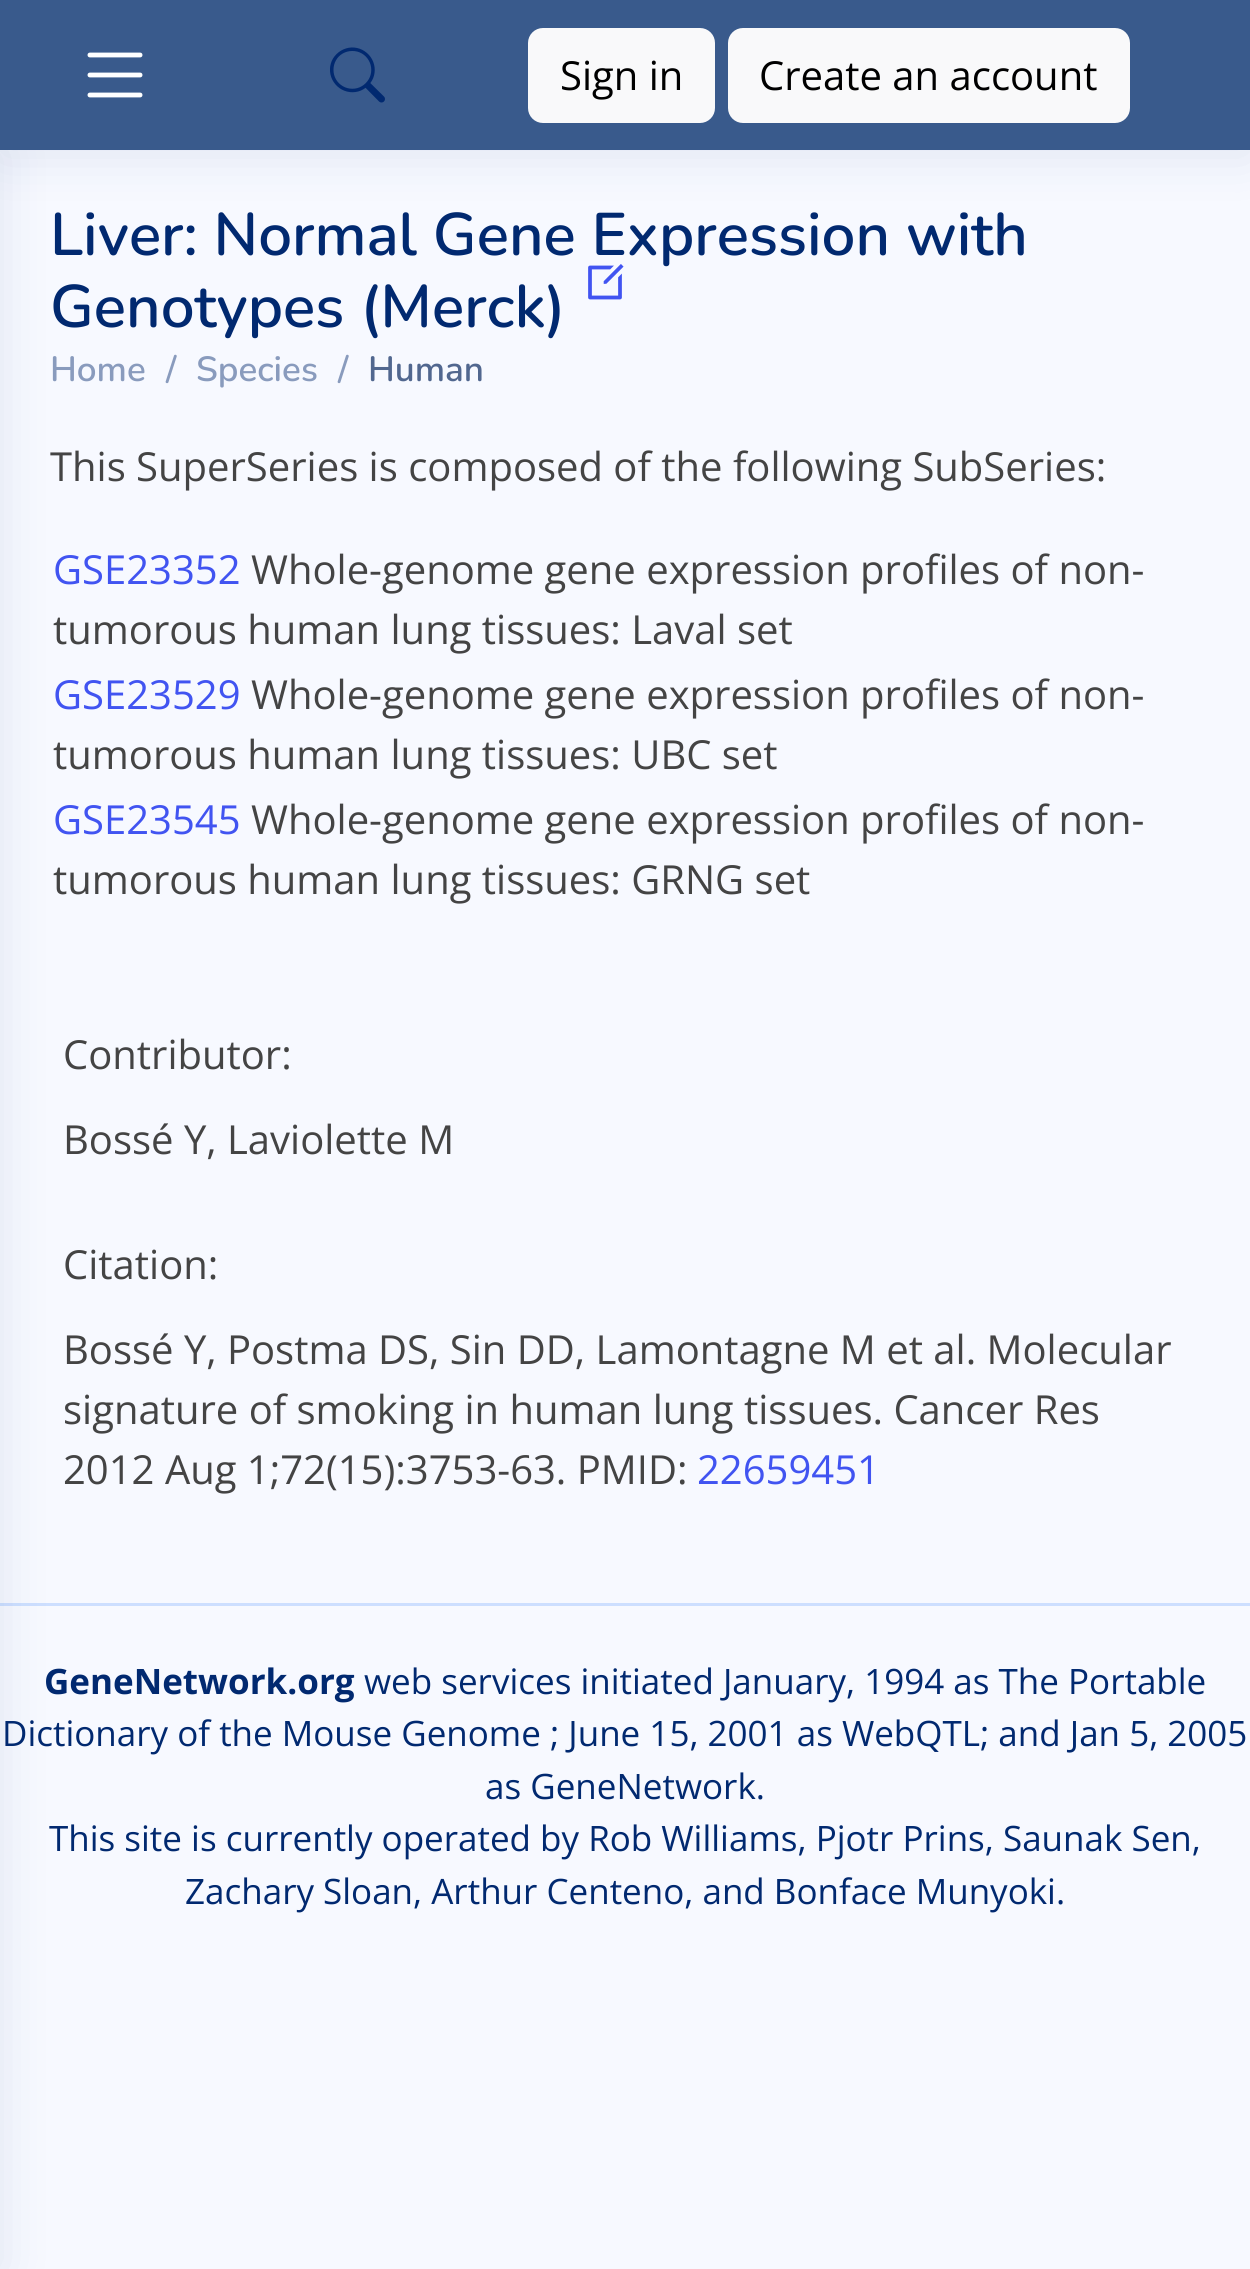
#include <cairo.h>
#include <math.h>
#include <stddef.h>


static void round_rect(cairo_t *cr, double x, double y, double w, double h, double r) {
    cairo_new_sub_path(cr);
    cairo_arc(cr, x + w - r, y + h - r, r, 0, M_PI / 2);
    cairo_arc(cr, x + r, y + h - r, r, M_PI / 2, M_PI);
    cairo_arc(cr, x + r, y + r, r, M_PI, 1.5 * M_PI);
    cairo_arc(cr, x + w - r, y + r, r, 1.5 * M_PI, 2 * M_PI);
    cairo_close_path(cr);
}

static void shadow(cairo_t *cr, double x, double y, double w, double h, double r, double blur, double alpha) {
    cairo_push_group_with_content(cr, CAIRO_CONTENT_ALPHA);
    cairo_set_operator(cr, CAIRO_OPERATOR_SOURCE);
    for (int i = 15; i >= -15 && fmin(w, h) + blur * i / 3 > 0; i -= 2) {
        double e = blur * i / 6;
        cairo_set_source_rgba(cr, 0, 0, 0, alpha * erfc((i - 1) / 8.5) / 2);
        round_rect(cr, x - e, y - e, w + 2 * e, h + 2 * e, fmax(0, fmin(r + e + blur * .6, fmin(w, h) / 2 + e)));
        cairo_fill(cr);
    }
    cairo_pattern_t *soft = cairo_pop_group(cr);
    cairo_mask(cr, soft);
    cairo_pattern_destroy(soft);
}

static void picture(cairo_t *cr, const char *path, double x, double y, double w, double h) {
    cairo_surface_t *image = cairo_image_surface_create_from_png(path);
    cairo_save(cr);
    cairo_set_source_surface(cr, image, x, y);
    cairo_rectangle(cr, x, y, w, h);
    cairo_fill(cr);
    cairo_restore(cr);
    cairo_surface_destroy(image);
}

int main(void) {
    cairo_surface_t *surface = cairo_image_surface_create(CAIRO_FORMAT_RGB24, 1250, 2269);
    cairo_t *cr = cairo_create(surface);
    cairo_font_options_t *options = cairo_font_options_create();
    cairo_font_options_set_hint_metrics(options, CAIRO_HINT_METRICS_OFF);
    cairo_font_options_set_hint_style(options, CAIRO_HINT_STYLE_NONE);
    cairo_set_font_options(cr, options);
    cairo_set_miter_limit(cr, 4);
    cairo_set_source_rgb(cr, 0.965, 0.976, 1);
    cairo_paint(cr);
    cairo_set_source_rgb(cr, 0.804, 0.875, 1);
    cairo_rectangle(cr, 0, 1603, 1250, 3);
    cairo_fill(cr);
    cairo_set_source_rgb(cr, 0.004, 0.161, 0.439);
    shadow(cr, -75, 150, 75, 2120, 0, 25, 0.1);
    shadow(cr, 0, 5, 1250, 150, 0, 25, 0.1);
    cairo_set_source_rgb(cr, 0.224, 0.353, 0.549);
    cairo_rectangle(cr, 0, 0, 1250, 150);
    cairo_fill(cr);
    picture(cr, "img1.png", 87, 52, 56, 46);
    picture(cr, "img2.png", 330, 47, 55, 56);
    cairo_set_source_rgb(cr, 0.973, 0.976, 0.98);
    round_rect(cr, 529.5, 29.5, 184, 92, 13.5);
    cairo_fill_preserve(cr);
    cairo_set_line_width(cr, 3);
    cairo_stroke(cr);
    cairo_select_font_face(cr, "Open Sans", CAIRO_FONT_SLANT_NORMAL, CAIRO_FONT_WEIGHT_NORMAL);
    cairo_set_font_size(cr, 40);
    cairo_set_source_rgb(cr, 0, 0, 0);
    cairo_move_to(cr, 560, 90);
    cairo_show_text(cr, "Sign in");
    cairo_set_source_rgb(cr, 0.973, 0.976, 0.98);
    round_rect(cr, 729.5, 29.5, 399, 92, 13.5);
    cairo_fill_preserve(cr);
    cairo_stroke(cr);
    cairo_set_source_rgb(cr, 0, 0, 0);
    cairo_move_to(cr, 759, 90);
    cairo_show_text(cr, "Create an account");
    cairo_select_font_face(cr, "Nunito SemiBold", CAIRO_FONT_SLANT_NORMAL, CAIRO_FONT_WEIGHT_NORMAL);
    cairo_set_font_size(cr, 60);
    cairo_set_source_rgb(cr, 0.004, 0.161, 0.439);
    cairo_move_to(cr, 50, 255);
    cairo_show_text(cr, "Liver: Normal Gene Expression with");
    cairo_move_to(cr, 50, 327);
    cairo_show_text(cr, "Genotypes (Merck)");
    picture(cr, "img3.png", 588, 264, 36, 36);
    cairo_set_font_size(cr, 35);
    cairo_set_source_rgb(cr, 0.537, 0.608, 0.741);
    cairo_move_to(cr, 50, 381);
    cairo_show_text(cr, "Home");
    cairo_move_to(cr, 166, 381);
    cairo_show_text(cr, "/");
    cairo_move_to(cr, 196, 381);
    cairo_show_text(cr, "Species");
    cairo_move_to(cr, 338, 381);
    cairo_show_text(cr, "/");
    cairo_set_source_rgb(cr, 0.318, 0.404, 0.561);
    cairo_move_to(cr, 368, 381);
    cairo_show_text(cr, "Human");
    cairo_select_font_face(cr, "Open Sans", CAIRO_FONT_SLANT_NORMAL, CAIRO_FONT_WEIGHT_NORMAL);
    cairo_set_font_size(cr, 40);
    cairo_set_source_rgb(cr, 0.267, 0.267, 0.267);
    cairo_move_to(cr, 50, 481);
    cairo_show_text(cr, "This SuperSeries is composed of the following SubSeries:");
    cairo_set_source_rgb(cr, 0.255, 0.329, 0.945);
    cairo_move_to(cr, 53, 584);
    cairo_show_text(cr, "GSE23352");
    cairo_set_source_rgb(cr, 0.267, 0.267, 0.267);
    cairo_move_to(cr, 251, 584);
    cairo_show_text(cr, "Whole-genome gene expression profiles of non-");
    cairo_move_to(cr, 53, 644);
    cairo_show_text(cr, "tumorous human lung tissues: Laval set");
    cairo_set_source_rgb(cr, 0.255, 0.329, 0.945);
    cairo_move_to(cr, 53, 709);
    cairo_show_text(cr, "GSE23529");
    cairo_set_source_rgb(cr, 0.267, 0.267, 0.267);
    cairo_move_to(cr, 251, 709);
    cairo_show_text(cr, "Whole-genome gene expression profiles of non-");
    cairo_move_to(cr, 53, 769);
    cairo_show_text(cr, "tumorous human lung tissues: UBC set");
    cairo_set_source_rgb(cr, 0.255, 0.329, 0.945);
    cairo_move_to(cr, 53, 834);
    cairo_show_text(cr, "GSE23545");
    cairo_set_source_rgb(cr, 0.267, 0.267, 0.267);
    cairo_move_to(cr, 251, 834);
    cairo_show_text(cr, "Whole-genome gene expression profiles of non-");
    cairo_move_to(cr, 53, 894);
    cairo_show_text(cr, "tumorous human lung tissues: GRNG set");
    cairo_move_to(cr, 63, 1069);
    cairo_show_text(cr, "Contributor:");
    cairo_move_to(cr, 63, 1154);
    cairo_show_text(cr, "Bossé Y, Laviolette M");
    cairo_move_to(cr, 63, 1279);
    cairo_show_text(cr, "Citation:");
    cairo_move_to(cr, 63, 1364);
    cairo_show_text(cr, "Bossé Y, Postma DS, Sin DD, Lamontagne M et al. Molecular");
    cairo_move_to(cr, 63, 1424);
    cairo_show_text(cr, "signature of smoking in human lung tissues. Cancer Res");
    cairo_move_to(cr, 63, 1484);
    cairo_show_text(cr, "2012 Aug 1;72(15):3753-63. PMID:");
    cairo_set_source_rgb(cr, 0.255, 0.329, 0.945);
    cairo_move_to(cr, 697, 1484);
    cairo_show_text(cr, "22659451");
    cairo_select_font_face(cr, "Open Sans", CAIRO_FONT_SLANT_NORMAL, CAIRO_FONT_WEIGHT_BOLD);
    cairo_set_font_size(cr, 35);
    cairo_set_source_rgb(cr, 0.004, 0.161, 0.439);
    cairo_move_to(cr, 44, 1694);
    cairo_show_text(cr, "GeneNetwork.org");
    cairo_select_font_face(cr, "Open Sans", CAIRO_FONT_SLANT_NORMAL, CAIRO_FONT_WEIGHT_NORMAL);
    cairo_move_to(cr, 364, 1694);
    cairo_show_text(cr, "web services initiated January, 1994 as The Portable");
    cairo_move_to(cr, 2, 1746);
    cairo_show_text(cr, "Dictionary of the Mouse Genome ; June 15, 2001 as WebQTL; and Jan 5, 2005");
    cairo_move_to(cr, 485, 1799);
    cairo_show_text(cr, "as GeneNetwork.");
    cairo_move_to(cr, 49, 1851);
    cairo_show_text(cr, "This site is currently operated by Rob Williams, Pjotr Prins, Saunak Sen,");
    cairo_move_to(cr, 185, 1904);
    cairo_show_text(cr, "Zachary Sloan, Arthur Centeno, and Bonface Munyoki.");
    cairo_surface_write_to_png(surface, "page.png");
    cairo_font_options_destroy(options);
    cairo_destroy(cr);
    cairo_surface_destroy(surface);
    return 0;
}
